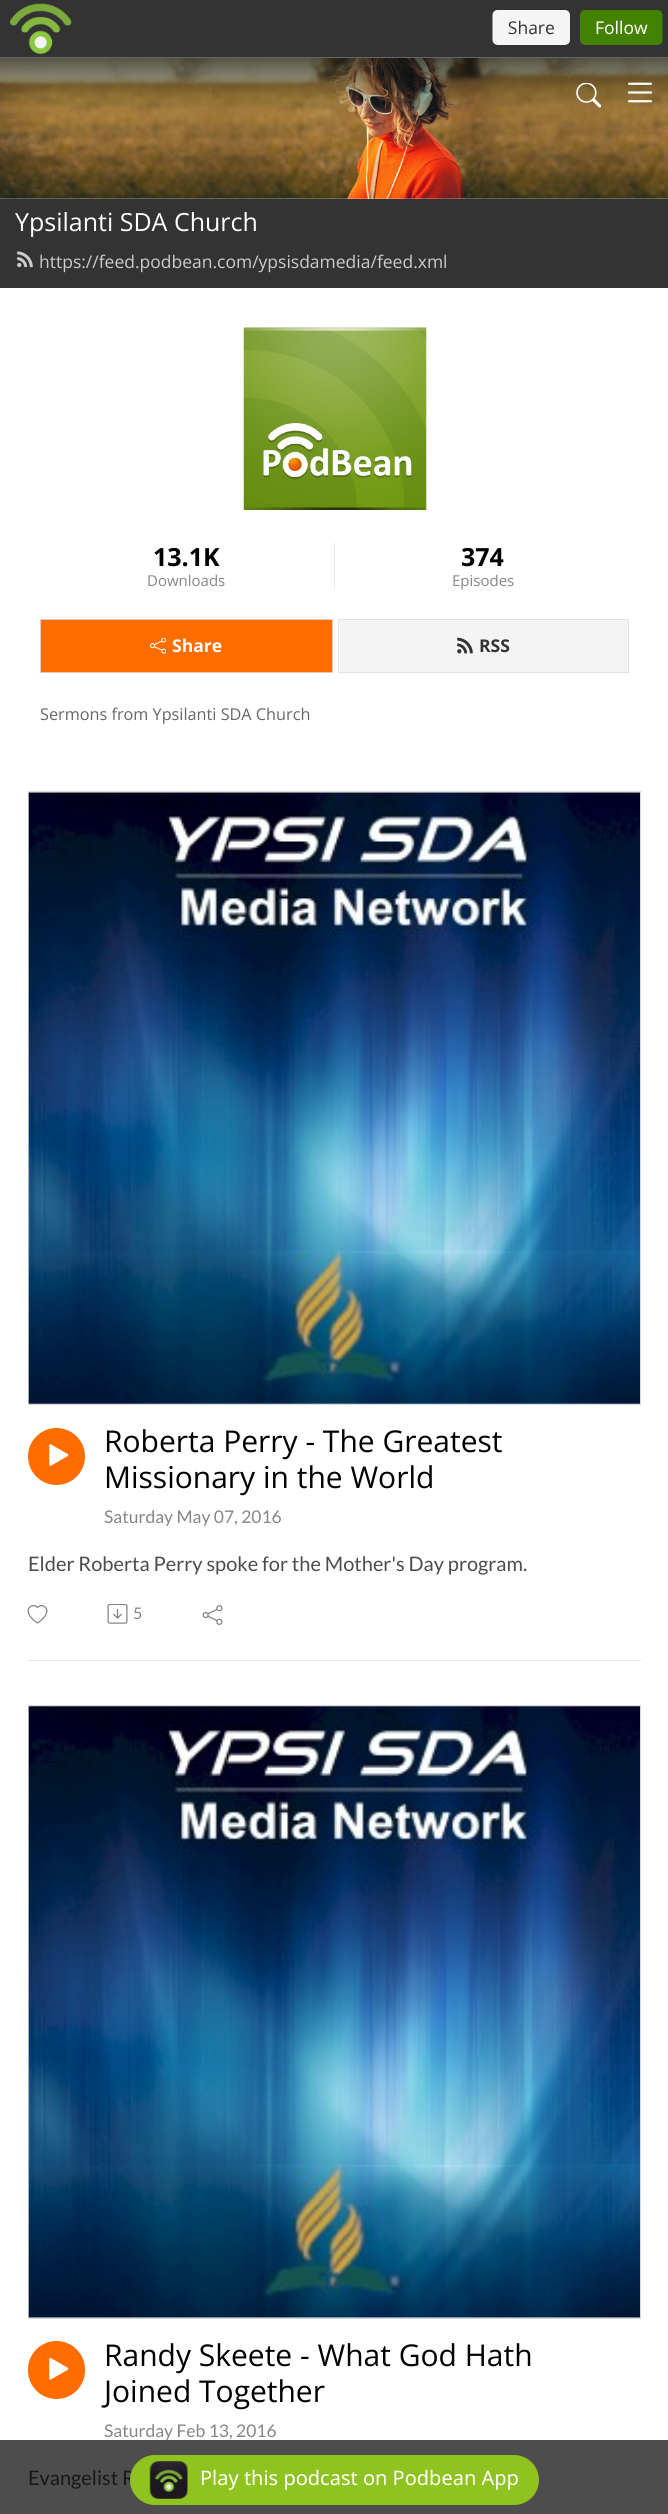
#include <cairo.h>
#include <math.h>
#include <stddef.h>


static void round_rect(cairo_t *cr, double x, double y, double w, double h, double r) {
    cairo_new_sub_path(cr);
    cairo_arc(cr, x + w - r, y + h - r, r, 0, M_PI / 2);
    cairo_arc(cr, x + r, y + h - r, r, M_PI / 2, M_PI);
    cairo_arc(cr, x + r, y + r, r, M_PI, 1.5 * M_PI);
    cairo_arc(cr, x + w - r, y + r, r, 1.5 * M_PI, 2 * M_PI);
    cairo_close_path(cr);
}

static void picture(cairo_t *cr, const char *path, double x, double y, double w, double h) {
    cairo_surface_t *image = cairo_image_surface_create_from_png(path);
    cairo_save(cr);
    cairo_set_source_surface(cr, image, x, y);
    cairo_rectangle(cr, x, y, w, h);
    cairo_fill(cr);
    cairo_restore(cr);
    cairo_surface_destroy(image);
}

int main(void) {
    cairo_surface_t *surface = cairo_image_surface_create(CAIRO_FORMAT_RGB24, 668, 2514);
    cairo_t *cr = cairo_create(surface);
    cairo_font_options_t *options = cairo_font_options_create();
    cairo_font_options_set_hint_metrics(options, CAIRO_HINT_METRICS_OFF);
    cairo_font_options_set_hint_style(options, CAIRO_HINT_STYLE_NONE);
    cairo_set_font_options(cr, options);
    cairo_set_miter_limit(cr, 4);
    cairo_set_source_rgb(cr, 1, 1, 1);
    cairo_paint(cr);
    cairo_set_source_rgb(cr, 0.302, 0.302, 0.302);
    cairo_rectangle(cr, 0, 2440, 668, 74);
    cairo_fill(cr);
    cairo_set_source_rgb(cr, 0.2, 0.2, 0.2);
    cairo_rectangle(cr, 0, 0, 668, 3);
    cairo_fill(cr);
    picture(cr, "img1.png", 0, 3, 668, 55);
    picture(cr, "img4.png", 0, 58, 668, 141);
    picture(cr, "img2.png", 576, 83, 25, 25);
    picture(cr, "img3.png", 628, 82, 24, 21);
    cairo_rectangle(cr, 0, 199, 668, 89);
    cairo_fill(cr);
    cairo_select_font_face(cr, "Open Sans", CAIRO_FONT_SLANT_NORMAL, CAIRO_FONT_WEIGHT_NORMAL);
    cairo_set_font_size(cr, 25);
    cairo_set_source_rgb(cr, 1, 1, 1);
    cairo_move_to(cr, 15, 231);
    cairo_show_text(cr, "Ypsilanti SDA Church");
    picture(cr, "img5.png", 17, 251, 16, 17);
    cairo_set_font_size(cr, 17.5);
    cairo_set_source_rgb(cr, 0.8, 0.8, 0.8);
    cairo_move_to(cr, 39, 268);
    cairo_show_text(cr, "https://feed.podbean.com/ypsisdamedia/feed.xml");
    picture(cr, "img6.png", 243, 327, 184, 183);
    cairo_select_font_face(cr, "Open Sans", CAIRO_FONT_SLANT_NORMAL, CAIRO_FONT_WEIGHT_BOLD);
    cairo_set_font_size(cr, 25);
    cairo_set_source_rgb(cr, 0, 0, 0);
    cairo_move_to(cr, 153, 566);
    cairo_show_text(cr, "13.1K");
    cairo_select_font_face(cr, "Open Sans", CAIRO_FONT_SLANT_NORMAL, CAIRO_FONT_WEIGHT_NORMAL);
    cairo_set_font_size(cr, 15);
    cairo_set_source_rgb(cr, 0.525, 0.525, 0.525);
    cairo_move_to(cr, 147, 586);
    cairo_show_text(cr, "Downloads");
    cairo_set_source_rgb(cr, 0.902, 0.902, 0.902);
    cairo_rectangle(cr, 334, 543, 1, 46);
    cairo_fill(cr);
    cairo_select_font_face(cr, "Open Sans", CAIRO_FONT_SLANT_NORMAL, CAIRO_FONT_WEIGHT_BOLD);
    cairo_set_font_size(cr, 25);
    cairo_set_source_rgb(cr, 0, 0, 0);
    cairo_move_to(cr, 461, 566);
    cairo_show_text(cr, "374");
    cairo_select_font_face(cr, "Open Sans", CAIRO_FONT_SLANT_NORMAL, CAIRO_FONT_WEIGHT_NORMAL);
    cairo_set_font_size(cr, 15);
    cairo_set_source_rgb(cr, 0.525, 0.525, 0.525);
    cairo_move_to(cr, 452, 586);
    cairo_show_text(cr, "Episodes");
    cairo_set_source_rgb(cr, 1, 0.427, 0);
    cairo_rectangle(cr, 40.5, 619.5, 292, 53);
    cairo_fill_preserve(cr);
    cairo_set_source_rgb(cr, 0.91, 0.796, 0.71);
    cairo_set_line_width(cr, 1);
    cairo_stroke(cr);
    picture(cr, "img7.png", 150, 638, 16, 16);
    cairo_select_font_face(cr, "Open Sans", CAIRO_FONT_SLANT_NORMAL, CAIRO_FONT_WEIGHT_BOLD);
    cairo_set_font_size(cr, 17.5);
    cairo_set_source_rgb(cr, 1, 1, 1);
    cairo_move_to(cr, 172, 652);
    cairo_show_text(cr, "Share");
    cairo_set_source_rgb(cr, 0.957, 0.957, 0.957);
    cairo_rectangle(cr, 338.5, 619.5, 290, 53);
    cairo_fill_preserve(cr);
    cairo_set_source_rgb(cr, 0.886, 0.886, 0.886);
    cairo_stroke(cr);
    picture(cr, "img8.png", 457, 637, 16, 17);
    cairo_set_source_rgb(cr, 0.2, 0.2, 0.2);
    cairo_move_to(cr, 479, 652);
    cairo_show_text(cr, "RSS");
    cairo_select_font_face(cr, "Open Sans", CAIRO_FONT_SLANT_NORMAL, CAIRO_FONT_WEIGHT_NORMAL);
    cairo_set_font_size(cr, 16.25);
    cairo_set_source_rgb(cr, 0.392, 0.4, 0.412);
    cairo_move_to(cr, 40, 720);
    cairo_show_text(cr, "Sermons from Ypsilanti SDA Church");
    cairo_rectangle(cr, 28.5, 791.5, 612, 613);
    cairo_set_source_rgb(cr, 0.855, 0.855, 0.855);
    cairo_stroke(cr);
    picture(cr, "img9.png", 28, 792, 612, 612);
    cairo_set_source_rgb(cr, 0.902, 0.902, 0.902);
    cairo_rectangle(cr, 28, 1660, 613, 1);
    cairo_fill(cr);
    cairo_set_source_rgb(cr, 1, 0.427, 0);
    cairo_arc(cr, 56.5, 1456.5, 28.5, 0, 2 * M_PI);
    cairo_fill(cr);
    picture(cr, "img10.png", 49, 1444, 20, 22);
    cairo_set_font_size(cr, 30);
    cairo_set_source_rgb(cr, 0, 0, 0);
    cairo_move_to(cr, 104, 1452);
    cairo_show_text(cr, "Roberta Perry - The Greatest");
    cairo_move_to(cr, 104, 1488);
    cairo_show_text(cr, "Missionary in the World");
    cairo_select_font_face(cr, "Lato", CAIRO_FONT_SLANT_NORMAL, CAIRO_FONT_WEIGHT_NORMAL);
    cairo_set_font_size(cr, 17.5);
    cairo_set_source_rgb(cr, 0.525, 0.525, 0.525);
    cairo_move_to(cr, 104, 1523);
    cairo_show_text(cr, "Saturday May 07, 2016");
    cairo_set_font_size(cr, 20);
    cairo_set_source_rgb(cr, 0.298, 0.298, 0.298);
    cairo_move_to(cr, 28, 1571);
    cairo_show_text(cr, "Elder Roberta Perry spoke for the Mother's Day program.");
    picture(cr, "img11.png", 27, 1605, 21, 19);
    picture(cr, "img12.png", 107, 1604, 21, 20);
    cairo_set_font_size(cr, 16);
    cairo_set_source_rgb(cr, 0.525, 0.525, 0.525);
    cairo_move_to(cr, 133, 1619);
    cairo_show_text(cr, "5");
    picture(cr, "img13.png", 202, 1605, 21, 20);
    cairo_rectangle(cr, 28.5, 1705.5, 612, 613);
    cairo_set_source_rgb(cr, 0.855, 0.855, 0.855);
    cairo_stroke(cr);
    picture(cr, "img14.png", 28, 1706, 612, 612);
    cairo_set_source_rgb(cr, 1, 0.427, 0);
    round_rect(cr, 28, 2341, 57, 58, 28.5);
    cairo_fill(cr);
    picture(cr, "img15.png", 49, 2358, 20, 22);
    cairo_select_font_face(cr, "Open Sans", CAIRO_FONT_SLANT_NORMAL, CAIRO_FONT_WEIGHT_NORMAL);
    cairo_set_font_size(cr, 30);
    cairo_set_source_rgb(cr, 0, 0, 0);
    cairo_move_to(cr, 104, 2366);
    cairo_show_text(cr, "Randy Skeete - What God Hath");
    cairo_move_to(cr, 104, 2402);
    cairo_show_text(cr, "Joined Together");
    cairo_select_font_face(cr, "Lato", CAIRO_FONT_SLANT_NORMAL, CAIRO_FONT_WEIGHT_NORMAL);
    cairo_set_font_size(cr, 17.5);
    cairo_set_source_rgb(cr, 0.525, 0.525, 0.525);
    cairo_move_to(cr, 104, 2437);
    cairo_show_text(cr, "Saturday Feb 13, 2016");
    cairo_set_font_size(cr, 20);
    cairo_set_source_rgb(cr, 0.09, 0.09, 0.09);
    cairo_move_to(cr, 28, 2485);
    cairo_show_text(cr, "Evangelist R");
    cairo_set_source_rgb(cr, 0.561, 0.765, 0.122);
    round_rect(cr, 130, 2455, 409, 50, 25);
    cairo_fill(cr);
    picture(cr, "img16.png", 149, 2461, 39, 38);
    cairo_select_font_face(cr, "Noto Sans", CAIRO_FONT_SLANT_NORMAL, CAIRO_FONT_WEIGHT_NORMAL);
    cairo_set_source_rgb(cr, 1, 1, 1);
    cairo_move_to(cr, 200, 2485);
    cairo_show_text(cr, "Play this podcast on Podbean App");
    cairo_surface_write_to_png(surface, "page.png");
    cairo_font_options_destroy(options);
    cairo_destroy(cr);
    cairo_surface_destroy(surface);
    return 0;
}
